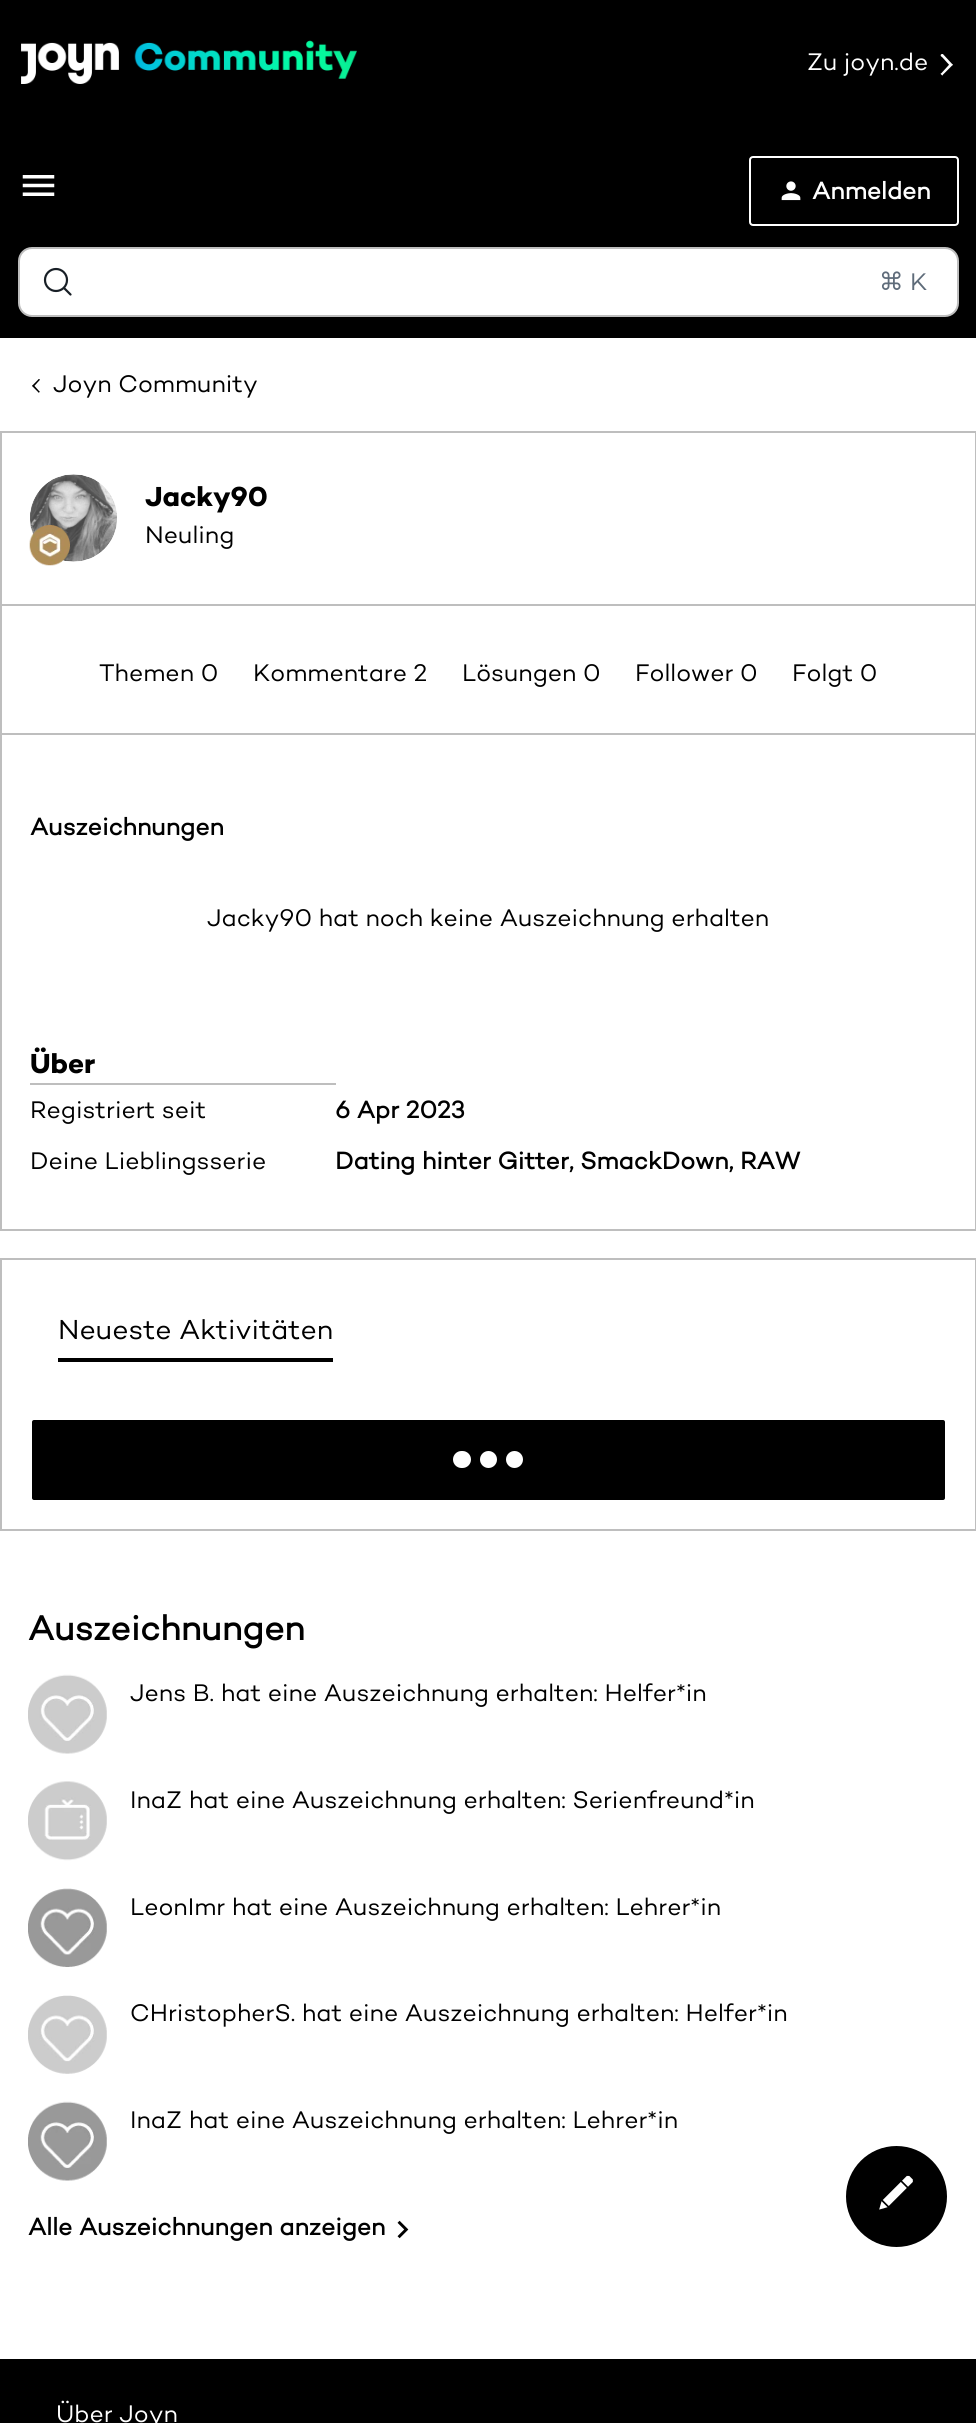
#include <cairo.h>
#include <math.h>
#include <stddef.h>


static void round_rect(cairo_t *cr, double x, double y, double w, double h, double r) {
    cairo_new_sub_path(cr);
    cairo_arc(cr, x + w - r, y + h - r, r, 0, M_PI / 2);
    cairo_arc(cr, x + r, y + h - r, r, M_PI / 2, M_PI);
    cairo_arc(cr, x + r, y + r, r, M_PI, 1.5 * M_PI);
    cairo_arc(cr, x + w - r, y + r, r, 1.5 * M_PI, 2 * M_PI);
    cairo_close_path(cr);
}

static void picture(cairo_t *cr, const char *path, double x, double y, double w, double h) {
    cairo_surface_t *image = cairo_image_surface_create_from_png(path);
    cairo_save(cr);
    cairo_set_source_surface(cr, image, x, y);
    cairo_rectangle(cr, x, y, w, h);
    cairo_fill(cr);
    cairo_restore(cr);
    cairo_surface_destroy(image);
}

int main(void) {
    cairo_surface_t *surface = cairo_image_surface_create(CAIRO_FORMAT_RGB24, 976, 2423);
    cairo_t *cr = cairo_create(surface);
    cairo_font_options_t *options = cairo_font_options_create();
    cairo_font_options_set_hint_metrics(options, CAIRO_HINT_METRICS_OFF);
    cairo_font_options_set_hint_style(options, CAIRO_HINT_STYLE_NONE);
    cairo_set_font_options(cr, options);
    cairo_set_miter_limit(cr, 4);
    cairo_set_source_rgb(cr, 1, 1, 1);
    cairo_paint(cr);
    cairo_set_source_rgb(cr, 0, 0, 0);
    cairo_rectangle(cr, 0, 0, 976, 338);
    cairo_fill(cr);
    picture(cr, "img1.png", 21, 40, 336, 44);
    cairo_select_font_face(cr, "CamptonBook", CAIRO_FONT_SLANT_NORMAL, CAIRO_FONT_WEIGHT_NORMAL);
    cairo_set_font_size(cr, 24.5);
    cairo_set_source_rgb(cr, 1, 1, 1);
    cairo_move_to(cr, 807, 70);
    cairo_show_text(cr, "Zu joyn.de");
    picture(cr, "img2.png", 940, 54, 13, 22);
    picture(cr, "img3.png", 22, 175, 33, 21);
    round_rect(cr, 750, 157, 208, 68, 3);
    cairo_stroke(cr);
    picture(cr, "img4.png", 781, 181, 20, 20);
    cairo_select_font_face(cr, "CamptonBook", CAIRO_FONT_SLANT_NORMAL, CAIRO_FONT_WEIGHT_BOLD);
    cairo_move_to(cr, 812, 199);
    cairo_show_text(cr, "Anmelden");
    round_rect(cr, 19, 248, 939, 68, 13);
    cairo_fill_preserve(cr);
    cairo_set_source_rgb(cr, 0.745, 0.745, 0.745);
    cairo_stroke(cr);
    cairo_arc(cr, 56, 280, 11, 0, 2 * M_PI);
    cairo_set_source_rgb(cr, 0.094, 0.122, 0.149);
    cairo_set_line_width(cr, 2.2);
    cairo_stroke(cr);
    cairo_new_path(cr);
    cairo_move_to(cr, 64, 288);
    cairo_line_to(cr, 70.5, 294.5);
    cairo_set_line_cap(cr, CAIRO_LINE_CAP_ROUND);
    cairo_stroke(cr);
    cairo_select_font_face(cr, "DejaVu Sans", CAIRO_FONT_SLANT_NORMAL, CAIRO_FONT_WEIGHT_NORMAL);
    cairo_set_source_rgb(cr, 0.373, 0.424, 0.478);
    cairo_move_to(cr, 879, 290);
    cairo_show_text(cr, "⌘");
    cairo_select_font_face(cr, "CamptonBook", CAIRO_FONT_SLANT_NORMAL, CAIRO_FONT_WEIGHT_NORMAL);
    cairo_move_to(cr, 910, 290);
    cairo_show_text(cr, "K");
    picture(cr, "img5.png", 32, 379, 8, 14);
    cairo_set_source_rgb(cr, 0, 0, 0);
    cairo_move_to(cr, 53, 392);
    cairo_show_text(cr, "Joyn Community");
    cairo_rectangle(cr, 1, 432, 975, 173);
    cairo_set_source_rgb(cr, 0.745, 0.745, 0.745);
    cairo_set_line_width(cr, 2);
    cairo_set_line_cap(cr, CAIRO_LINE_CAP_BUTT);
    cairo_stroke(cr);
    picture(cr, "img6.png", 30, 474, 87, 88);
    picture(cr, "img7.png", 29, 525, 41, 41);
    cairo_select_font_face(cr, "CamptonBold", CAIRO_FONT_SLANT_NORMAL, CAIRO_FONT_WEIGHT_BOLD);
    cairo_set_font_size(cr, 28);
    cairo_set_source_rgb(cr, 0, 0, 0);
    cairo_move_to(cr, 145, 506);
    cairo_show_text(cr, "Jacky90");
    cairo_select_font_face(cr, "CamptonBook", CAIRO_FONT_SLANT_NORMAL, CAIRO_FONT_WEIGHT_NORMAL);
    cairo_set_font_size(cr, 24.5);
    cairo_move_to(cr, 145, 543);
    cairo_show_text(cr, "Neuling");
    cairo_set_source_rgb(cr, 0.745, 0.745, 0.745);
    cairo_rectangle(cr, 975, 606, 1, 624);
    cairo_fill(cr);
    cairo_rectangle(cr, 0, 733, 976, 2);
    cairo_fill(cr);
    cairo_rectangle(cr, 0, 606, 2, 129);
    cairo_fill(cr);
    cairo_set_source_rgb(cr, 0, 0, 0);
    cairo_move_to(cr, 99, 681);
    cairo_show_text(cr, "Themen 0");
    cairo_move_to(cr, 253, 681);
    cairo_show_text(cr, "Kommentare 2");
    cairo_move_to(cr, 462, 681);
    cairo_show_text(cr, "Lösungen 0");
    cairo_move_to(cr, 635, 681);
    cairo_show_text(cr, "Follower 0");
    cairo_move_to(cr, 792, 681);
    cairo_show_text(cr, "Folgt 0");
    cairo_set_source_rgb(cr, 0.745, 0.745, 0.745);
    cairo_rectangle(cr, 0, 735, 2, 257);
    cairo_fill(cr);
    cairo_select_font_face(cr, "CamptonBook", CAIRO_FONT_SLANT_NORMAL, CAIRO_FONT_WEIGHT_BOLD);
    cairo_set_source_rgb(cr, 0, 0, 0);
    cairo_move_to(cr, 30, 835);
    cairo_show_text(cr, "Auszeichnungen");
    cairo_select_font_face(cr, "CamptonBook", CAIRO_FONT_SLANT_NORMAL, CAIRO_FONT_WEIGHT_NORMAL);
    cairo_move_to(cr, 207, 926);
    cairo_show_text(cr, "Jacky90 hat noch keine Auszeichnung erhalten");
    cairo_set_source_rgb(cr, 0.745, 0.745, 0.745);
    cairo_rectangle(cr, 0, 1229, 976, 2);
    cairo_fill(cr);
    cairo_rectangle(cr, 0, 992, 2, 238);
    cairo_fill(cr);
    cairo_rectangle(cr, 30, 1083, 306, 2);
    cairo_fill(cr);
    cairo_select_font_face(cr, "CamptonBold", CAIRO_FONT_SLANT_NORMAL, CAIRO_FONT_WEIGHT_BOLD);
    cairo_set_font_size(cr, 28);
    cairo_set_source_rgb(cr, 0, 0, 0);
    cairo_move_to(cr, 30, 1073);
    cairo_show_text(cr, "Über");
    cairo_select_font_face(cr, "CamptonBook", CAIRO_FONT_SLANT_NORMAL, CAIRO_FONT_WEIGHT_NORMAL);
    cairo_set_font_size(cr, 24.5);
    cairo_move_to(cr, 30, 1118);
    cairo_show_text(cr, "Registriert seit");
    cairo_select_font_face(cr, "CamptonBook", CAIRO_FONT_SLANT_NORMAL, CAIRO_FONT_WEIGHT_BOLD);
    cairo_move_to(cr, 335, 1118);
    cairo_show_text(cr, "6 Apr 2023");
    cairo_select_font_face(cr, "CamptonBook", CAIRO_FONT_SLANT_NORMAL, CAIRO_FONT_WEIGHT_NORMAL);
    cairo_move_to(cr, 30, 1169);
    cairo_show_text(cr, "Deine Lieblingsserie");
    cairo_select_font_face(cr, "CamptonBook", CAIRO_FONT_SLANT_NORMAL, CAIRO_FONT_WEIGHT_BOLD);
    cairo_move_to(cr, 335, 1169);
    cairo_show_text(cr, "Dating hinter Gitter, SmackDown, RAW");
    cairo_rectangle(cr, 1, 1259, 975, 271);
    cairo_set_source_rgb(cr, 0.745, 0.745, 0.745);
    cairo_stroke(cr);
    cairo_set_source_rgb(cr, 0, 0, 0);
    cairo_rectangle(cr, 58, 1358, 275, 4);
    cairo_fill(cr);
    cairo_select_font_face(cr, "CamptonBook", CAIRO_FONT_SLANT_NORMAL, CAIRO_FONT_WEIGHT_NORMAL);
    cairo_set_font_size(cr, 28);
    cairo_move_to(cr, 58, 1339);
    cairo_show_text(cr, "Neueste Aktivitäten");
    round_rect(cr, 31, 1419, 915, 82, 3);
    cairo_fill_preserve(cr);
    cairo_set_source_rgb(cr, 1, 1, 1);
    cairo_stroke(cr);
    cairo_arc(cr, 488.5, 1459.5, 8.5, 0, 2 * M_PI);
    cairo_fill(cr);
    round_rect(cr, 453, 1451, 18, 17, 8.5);
    cairo_fill(cr);
    cairo_arc(cr, 514.5, 1459.5, 8.5, 0, 2 * M_PI);
    cairo_fill(cr);
    cairo_select_font_face(cr, "CamptonBook", CAIRO_FONT_SLANT_NORMAL, CAIRO_FONT_WEIGHT_BOLD);
    cairo_set_font_size(cr, 35);
    cairo_set_source_rgb(cr, 0, 0, 0);
    cairo_move_to(cr, 28, 1640);
    cairo_show_text(cr, "Auszeichnungen");
    picture(cr, "img8.png", 28, 1674, 79, 80);
    cairo_select_font_face(cr, "CamptonBook", CAIRO_FONT_SLANT_NORMAL, CAIRO_FONT_WEIGHT_NORMAL);
    cairo_set_font_size(cr, 24.5);
    cairo_move_to(cr, 130, 1701);
    cairo_show_text(cr, "Jens B.");
    cairo_move_to(cr, 221, 1701);
    cairo_show_text(cr, "hat eine Auszeichnung erhalten: Helfer*in");
    picture(cr, "img9.png", 28, 1781, 79, 80);
    cairo_move_to(cr, 130, 1808);
    cairo_show_text(cr, "InaZ");
    cairo_move_to(cr, 189, 1808);
    cairo_show_text(cr, "hat eine Auszeichnung erhalten: Serienfreund*in");
    picture(cr, "img10.png", 28, 1888, 79, 79);
    cairo_move_to(cr, 130, 1915);
    cairo_show_text(cr, "LeonImr");
    cairo_move_to(cr, 232, 1915);
    cairo_show_text(cr, "hat eine Auszeichnung erhalten: Lehrer*in");
    picture(cr, "img11.png", 28, 1995, 79, 79);
    cairo_move_to(cr, 130, 2021);
    cairo_show_text(cr, "CHristopherS.");
    cairo_move_to(cr, 302, 2021);
    cairo_show_text(cr, "hat eine Auszeichnung erhalten: Helfer*in");
    picture(cr, "img12.png", 28, 2101, 79, 80);
    cairo_move_to(cr, 130, 2128);
    cairo_show_text(cr, "InaZ");
    cairo_move_to(cr, 189, 2128);
    cairo_show_text(cr, "hat eine Auszeichnung erhalten: Lehrer*in");
    cairo_select_font_face(cr, "CamptonBook", CAIRO_FONT_SLANT_NORMAL, CAIRO_FONT_WEIGHT_BOLD);
    cairo_move_to(cr, 28, 2235);
    cairo_show_text(cr, "Alle Auszeichnungen anzeigen");
    picture(cr, "img13.png", 397, 2220, 12, 19);
    cairo_arc(cr, 896.5, 2196.5, 51.5, 0, 2 * M_PI);
    cairo_fill_preserve(cr);
    cairo_set_source_rgb(cr, 1, 1, 1);
    cairo_stroke(cr);
    picture(cr, "img14.png", 879, 2175, 34, 35);
    cairo_set_source_rgb(cr, 0, 0, 0);
    cairo_rectangle(cr, 0, 2359, 976, 64);
    cairo_fill(cr);
    cairo_select_font_face(cr, "CamptonBook", CAIRO_FONT_SLANT_NORMAL, CAIRO_FONT_WEIGHT_NORMAL);
    cairo_set_source_rgb(cr, 1, 1, 1);
    cairo_move_to(cr, 56, 2422);
    cairo_show_text(cr, "Über Joyn");
    cairo_surface_write_to_png(surface, "page.png");
    cairo_font_options_destroy(options);
    cairo_destroy(cr);
    cairo_surface_destroy(surface);
    return 0;
}
